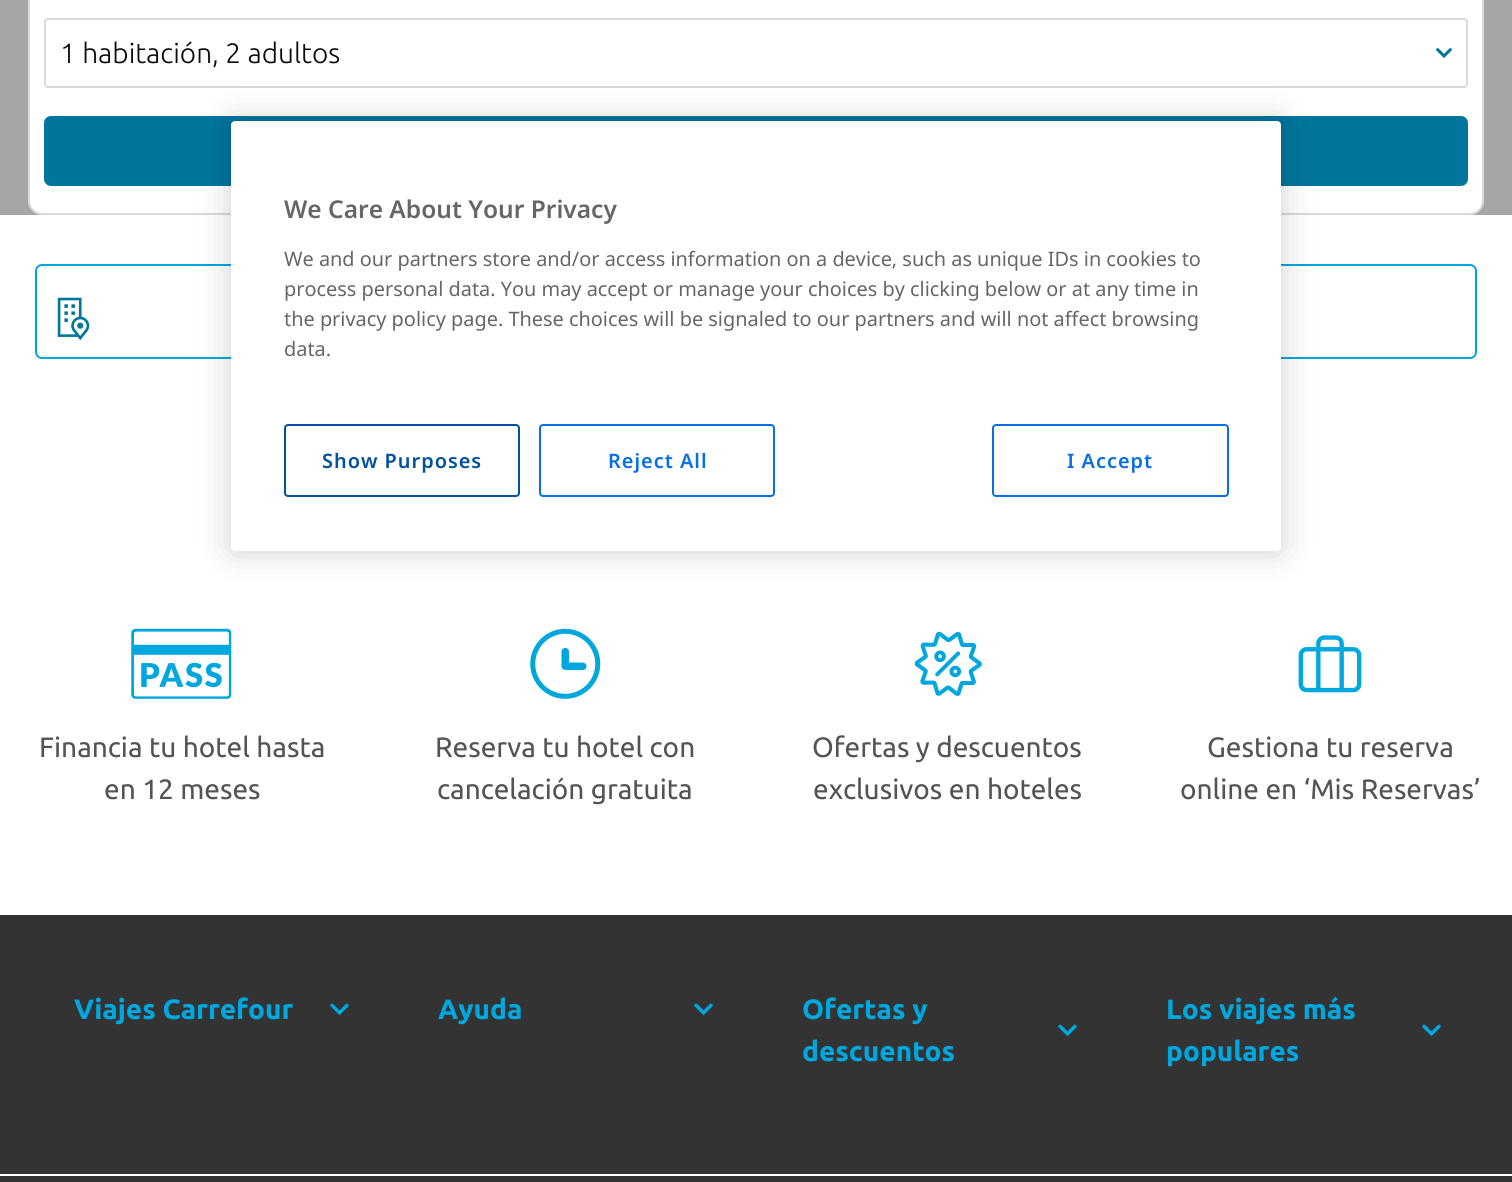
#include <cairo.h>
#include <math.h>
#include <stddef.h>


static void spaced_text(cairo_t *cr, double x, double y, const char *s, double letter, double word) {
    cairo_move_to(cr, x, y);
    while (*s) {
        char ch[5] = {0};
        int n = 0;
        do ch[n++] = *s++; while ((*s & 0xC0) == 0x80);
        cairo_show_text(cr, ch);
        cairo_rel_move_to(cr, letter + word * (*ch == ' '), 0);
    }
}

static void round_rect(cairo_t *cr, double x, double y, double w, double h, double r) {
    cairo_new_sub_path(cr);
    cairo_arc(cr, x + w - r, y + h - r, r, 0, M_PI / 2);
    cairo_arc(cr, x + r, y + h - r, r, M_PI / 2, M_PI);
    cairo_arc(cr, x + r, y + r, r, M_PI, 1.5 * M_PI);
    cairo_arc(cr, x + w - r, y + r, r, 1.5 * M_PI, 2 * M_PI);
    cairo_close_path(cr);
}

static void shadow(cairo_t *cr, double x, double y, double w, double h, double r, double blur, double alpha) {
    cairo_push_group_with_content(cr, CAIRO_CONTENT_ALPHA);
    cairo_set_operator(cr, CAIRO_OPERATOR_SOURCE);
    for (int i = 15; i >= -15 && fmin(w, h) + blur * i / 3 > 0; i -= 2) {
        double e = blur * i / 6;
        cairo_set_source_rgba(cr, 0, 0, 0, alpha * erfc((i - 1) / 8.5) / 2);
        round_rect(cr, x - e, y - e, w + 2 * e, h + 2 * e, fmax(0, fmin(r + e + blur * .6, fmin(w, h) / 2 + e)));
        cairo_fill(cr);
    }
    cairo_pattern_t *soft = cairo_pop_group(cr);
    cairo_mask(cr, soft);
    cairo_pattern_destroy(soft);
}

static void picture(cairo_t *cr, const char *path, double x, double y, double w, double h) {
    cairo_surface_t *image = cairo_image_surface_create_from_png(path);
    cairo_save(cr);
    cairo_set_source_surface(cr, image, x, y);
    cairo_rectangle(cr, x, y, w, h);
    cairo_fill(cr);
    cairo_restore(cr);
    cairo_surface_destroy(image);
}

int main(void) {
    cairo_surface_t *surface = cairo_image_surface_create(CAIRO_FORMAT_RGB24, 1512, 1182);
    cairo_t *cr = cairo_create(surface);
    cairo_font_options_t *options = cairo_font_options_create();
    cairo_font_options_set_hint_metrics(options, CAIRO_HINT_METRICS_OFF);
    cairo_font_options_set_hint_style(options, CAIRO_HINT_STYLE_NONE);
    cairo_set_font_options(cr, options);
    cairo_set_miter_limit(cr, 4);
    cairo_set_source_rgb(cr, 1, 1, 1);
    cairo_paint(cr);
    cairo_set_source_rgb(cr, 0.651, 0.651, 0.651);
    cairo_rectangle(cr, 0, 0, 1512, 215);
    cairo_fill(cr);
    cairo_set_source_rgb(cr, 1, 1, 1);
    round_rect(cr, 29, -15, 1454, 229, 13);
    cairo_fill_preserve(cr);
    cairo_set_source_rgb(cr, 0.851, 0.851, 0.851);
    cairo_stroke(cr);
    round_rect(cr, 45, 19, 1422, 68, 3);
    cairo_stroke(cr);
    cairo_select_font_face(cr, "Ubuntu Light", CAIRO_FONT_SLANT_NORMAL, CAIRO_FONT_WEIGHT_NORMAL);
    cairo_set_font_size(cr, 28);
    cairo_set_source_rgb(cr, 0.039, 0.039, 0.043);
    cairo_move_to(cr, 60, 63);
    cairo_show_text(cr, "1 habitación, 2 adultos");
    picture(cr, "img1.png", 1436, 48, 16, 10);
    cairo_set_source_rgb(cr, 0, 0.463, 0.616);
    round_rect(cr, 44, 116, 1424, 70, 7);
    cairo_fill(cr);
    round_rect(cr, 36, 265, 1440, 93, 6);
    cairo_set_source_rgb(cr, 0, 0.655, 0.875);
    cairo_stroke(cr);
    picture(cr, "img2.png", 57, 297, 33, 44);
    picture(cr, "img3.png", 131, 628, 101, 71);
    cairo_select_font_face(cr, "Ubuntu", CAIRO_FONT_SLANT_NORMAL, CAIRO_FONT_WEIGHT_NORMAL);
    cairo_set_source_rgb(cr, 0.329, 0.329, 0.329);
    cairo_move_to(cr, 39, 757);
    cairo_show_text(cr, "Financia tu hotel hasta");
    cairo_move_to(cr, 104, 799);
    cairo_show_text(cr, "en 12 meses");
    picture(cr, "img4.png", 530, 628, 71, 71);
    cairo_move_to(cr, 435, 757);
    cairo_show_text(cr, "Reserva tu hotel con");
    cairo_move_to(cr, 437, 799);
    cairo_show_text(cr, "cancelación gratuita");
    picture(cr, "img5.png", 914, 631, 68, 65);
    cairo_move_to(cr, 812, 757);
    cairo_show_text(cr, "Ofertas y descuentos");
    cairo_move_to(cr, 813, 799);
    cairo_show_text(cr, "exclusivos en hoteles");
    picture(cr, "img6.png", 1298, 635, 64, 58);
    cairo_move_to(cr, 1207, 757);
    cairo_show_text(cr, "Gestiona tu reserva");
    cairo_move_to(cr, 1180, 799);
    cairo_show_text(cr, "online en ‘Mis Reservas’");
    cairo_set_source_rgb(cr, 0, 0, 0);
    shadow(cr, 231, 121, 1050, 430, 4, 16, 0.2);
    cairo_set_source_rgb(cr, 1, 1, 1);
    round_rect(cr, 231, 121, 1050, 430, 4);
    cairo_fill(cr);
    cairo_select_font_face(cr, "Noto Sans SemiBold", CAIRO_FONT_SLANT_NORMAL, CAIRO_FONT_WEIGHT_NORMAL);
    cairo_set_font_size(cr, 24.5);
    cairo_set_source_rgb(cr, 0.4, 0.4, 0.4);
    cairo_move_to(cr, 284, 218);
    cairo_show_text(cr, "We Care About Your Privacy");
    cairo_select_font_face(cr, "Noto Sans", CAIRO_FONT_SLANT_NORMAL, CAIRO_FONT_WEIGHT_NORMAL);
    cairo_set_font_size(cr, 19.9);
    cairo_move_to(cr, 284, 266);
    cairo_show_text(cr, "We and our partners store and/or access information on a device, such as unique IDs in cookies to");
    cairo_move_to(cr, 284, 296);
    cairo_show_text(cr, "process personal data. You may accept or manage your choices by clicking below or at any time in");
    cairo_move_to(cr, 284, 326);
    cairo_show_text(cr, "the privacy policy page. These choices will be signaled to our partners and will not affect browsing");
    cairo_move_to(cr, 284, 356);
    cairo_show_text(cr, "data.");
    round_rect(cr, 285, 425, 234, 71, 3);
    cairo_set_source_rgb(cr, 0, 0.322, 0.612);
    cairo_stroke(cr);
    cairo_select_font_face(cr, "Noto Sans SemiBold", CAIRO_FONT_SLANT_NORMAL, CAIRO_FONT_WEIGHT_NORMAL);
    spaced_text(cr, 322, 468, "Show Purposes", 1, 0);
    round_rect(cr, 540, 425, 234, 71, 3);
    cairo_set_source_rgb(cr, 0.035, 0.439, 0.902);
    cairo_stroke(cr);
    spaced_text(cr, 608, 468, "Reject All", 1, 0);
    round_rect(cr, 993, 425, 235, 71, 3);
    cairo_stroke(cr);
    spaced_text(cr, 1067, 468, "I Accept", 1, 0);
    cairo_set_source_rgb(cr, 0.2, 0.2, 0.2);
    cairo_rectangle(cr, 0, 915, 1512, 267);
    cairo_fill(cr);
    cairo_select_font_face(cr, "Ubuntu", CAIRO_FONT_SLANT_NORMAL, CAIRO_FONT_WEIGHT_BOLD);
    cairo_set_font_size(cr, 28);
    cairo_set_source_rgb(cr, 0, 0.655, 0.875);
    cairo_move_to(cr, 74, 1019);
    cairo_show_text(cr, "Viajes Carrefour");
    picture(cr, "img7.png", 330, 1003, 19, 13);
    cairo_move_to(cr, 438, 1019);
    cairo_show_text(cr, "Ayuda");
    picture(cr, "img7.png", 694, 1003, 19, 13);
    cairo_move_to(cr, 802, 1019);
    cairo_show_text(cr, "Ofertas y");
    cairo_move_to(cr, 802, 1061);
    cairo_show_text(cr, "descuentos");
    picture(cr, "img7.png", 1058, 1024, 19, 13);
    cairo_move_to(cr, 1166, 1019);
    cairo_show_text(cr, "Los viajes más");
    cairo_move_to(cr, 1166, 1061);
    cairo_show_text(cr, "populares");
    picture(cr, "img7.png", 1422, 1024, 19, 13);
    cairo_set_source_rgb(cr, 1, 1, 1);
    cairo_rectangle(cr, 0, 1174, 1512, 2);
    cairo_fill(cr);
    cairo_surface_write_to_png(surface, "page.png");
    cairo_font_options_destroy(options);
    cairo_destroy(cr);
    cairo_surface_destroy(surface);
    return 0;
}
